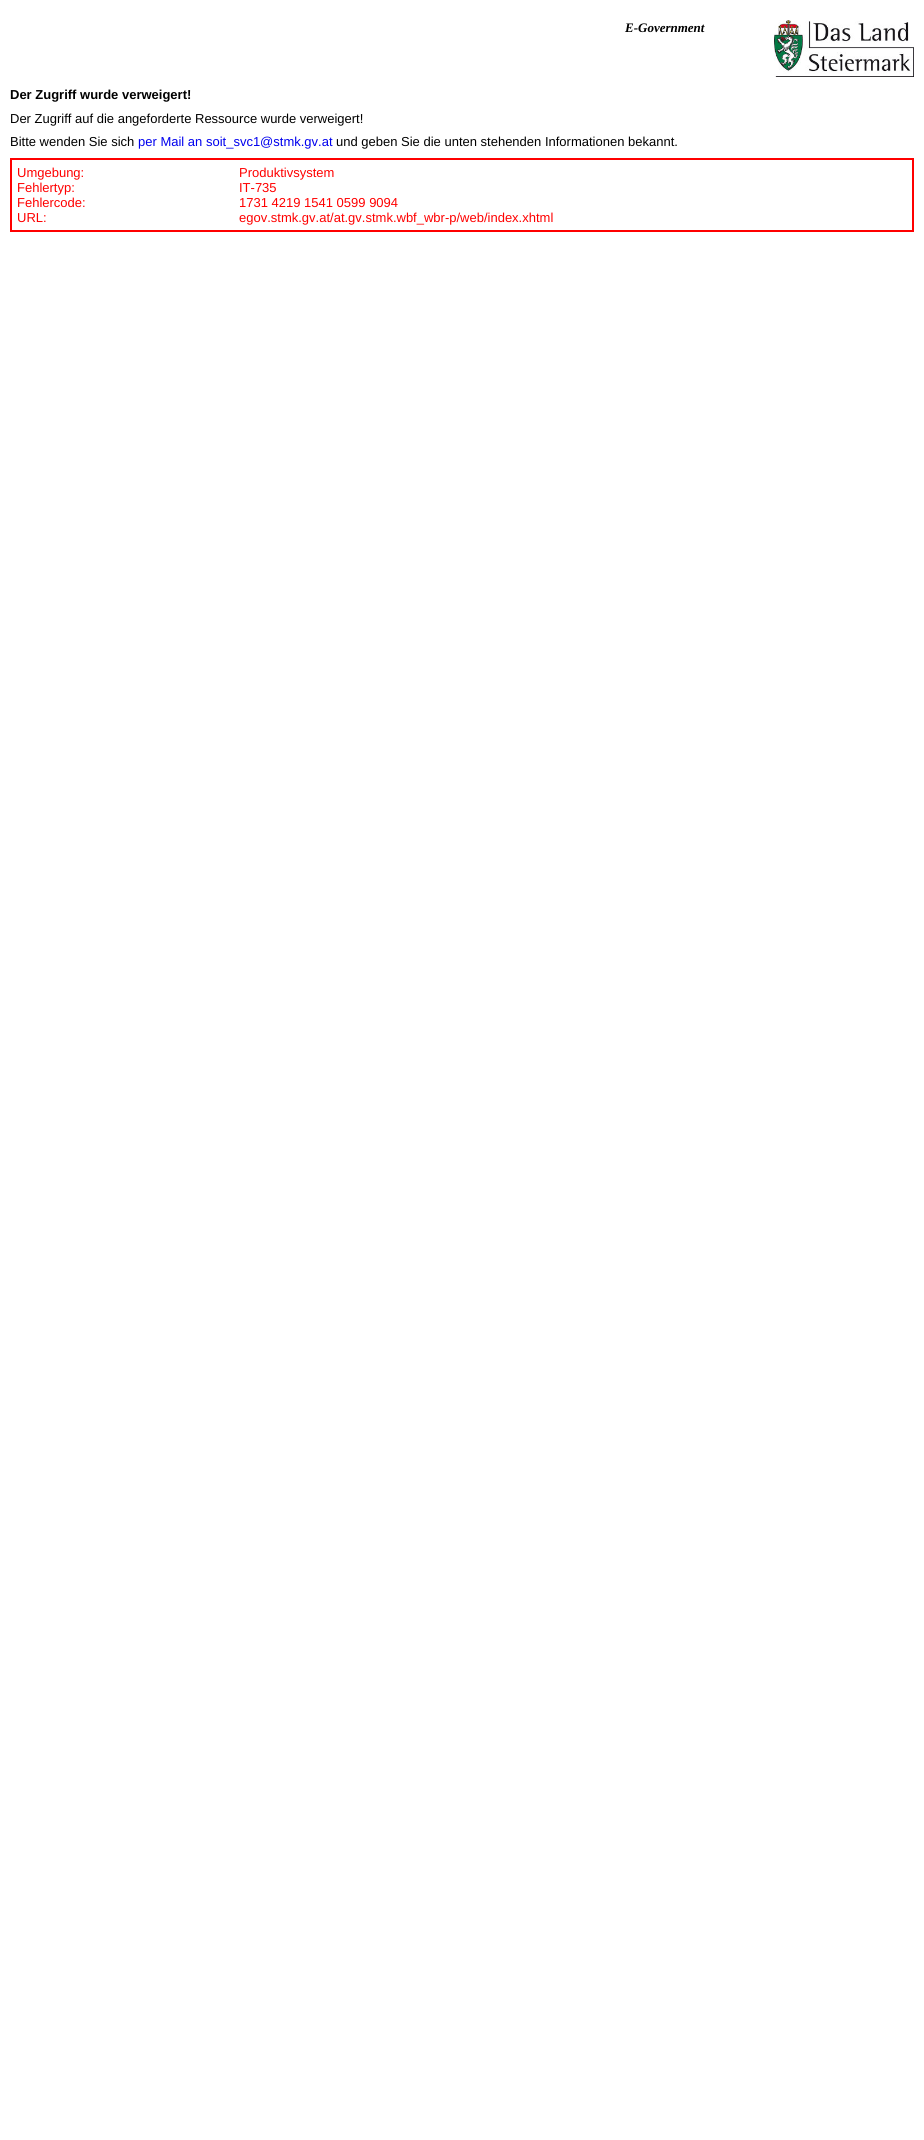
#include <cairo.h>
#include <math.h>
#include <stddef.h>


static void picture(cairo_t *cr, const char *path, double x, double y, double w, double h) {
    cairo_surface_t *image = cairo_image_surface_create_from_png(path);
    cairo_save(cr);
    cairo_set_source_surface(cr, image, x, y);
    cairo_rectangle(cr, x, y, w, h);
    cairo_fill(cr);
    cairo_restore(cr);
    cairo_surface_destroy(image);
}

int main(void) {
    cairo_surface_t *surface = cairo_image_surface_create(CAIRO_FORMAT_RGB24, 924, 2140);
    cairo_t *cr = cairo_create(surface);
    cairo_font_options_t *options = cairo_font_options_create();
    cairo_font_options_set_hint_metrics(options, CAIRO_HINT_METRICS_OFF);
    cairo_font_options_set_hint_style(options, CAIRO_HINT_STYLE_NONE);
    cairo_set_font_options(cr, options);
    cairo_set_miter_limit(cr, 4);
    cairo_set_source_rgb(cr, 1, 1, 1);
    cairo_paint(cr);
    cairo_select_font_face(cr, "Liberation Serif", CAIRO_FONT_SLANT_ITALIC, CAIRO_FONT_WEIGHT_BOLD);
    cairo_set_font_size(cr, 13);
    cairo_set_source_rgb(cr, 0, 0, 0);
    cairo_move_to(cr, 625, 32);
    cairo_show_text(cr, "E-Government");
    picture(cr, "img1.png", 774, 20, 140, 57);
    cairo_select_font_face(cr, "Liberation Sans", CAIRO_FONT_SLANT_NORMAL, CAIRO_FONT_WEIGHT_BOLD);
    cairo_move_to(cr, 10, 99);
    cairo_show_text(cr, "Der Zugriff wurde verweigert!");
    cairo_select_font_face(cr, "Liberation Sans", CAIRO_FONT_SLANT_NORMAL, CAIRO_FONT_WEIGHT_NORMAL);
    cairo_move_to(cr, 10, 123);
    cairo_show_text(cr, "Der Zugriff auf die angeforderte Ressource wurde verweigert!");
    cairo_move_to(cr, 10, 146);
    cairo_show_text(cr, "Bitte wenden Sie sich");
    cairo_set_source_rgb(cr, 0, 0, 0.933);
    cairo_move_to(cr, 138, 146);
    cairo_show_text(cr, "per Mail an soit_svc1@stmk.gv.at");
    cairo_set_source_rgb(cr, 0, 0, 0);
    cairo_move_to(cr, 336, 146);
    cairo_show_text(cr, "und geben Sie die unten stehenden Informationen bekannt.");
    cairo_rectangle(cr, 11, 159, 902, 72);
    cairo_set_source_rgb(cr, 1, 0, 0);
    cairo_stroke(cr);
    cairo_move_to(cr, 17, 177);
    cairo_show_text(cr, "Umgebung:");
    cairo_move_to(cr, 239, 177);
    cairo_show_text(cr, "Produktivsystem");
    cairo_move_to(cr, 17, 192);
    cairo_show_text(cr, "Fehlertyp:");
    cairo_move_to(cr, 239, 192);
    cairo_show_text(cr, "IT-735");
    cairo_move_to(cr, 17, 207);
    cairo_show_text(cr, "Fehlercode:");
    cairo_move_to(cr, 239, 207);
    cairo_show_text(cr, "1731 4219 1541 0599 9094");
    cairo_move_to(cr, 17, 222);
    cairo_show_text(cr, "URL:");
    cairo_move_to(cr, 239, 222);
    cairo_show_text(cr, "egov.stmk.gv.at/at.gv.stmk.wbf_wbr-p/web/index.xhtml");
    cairo_surface_write_to_png(surface, "page.png");
    cairo_font_options_destroy(options);
    cairo_destroy(cr);
    cairo_surface_destroy(surface);
    return 0;
}
